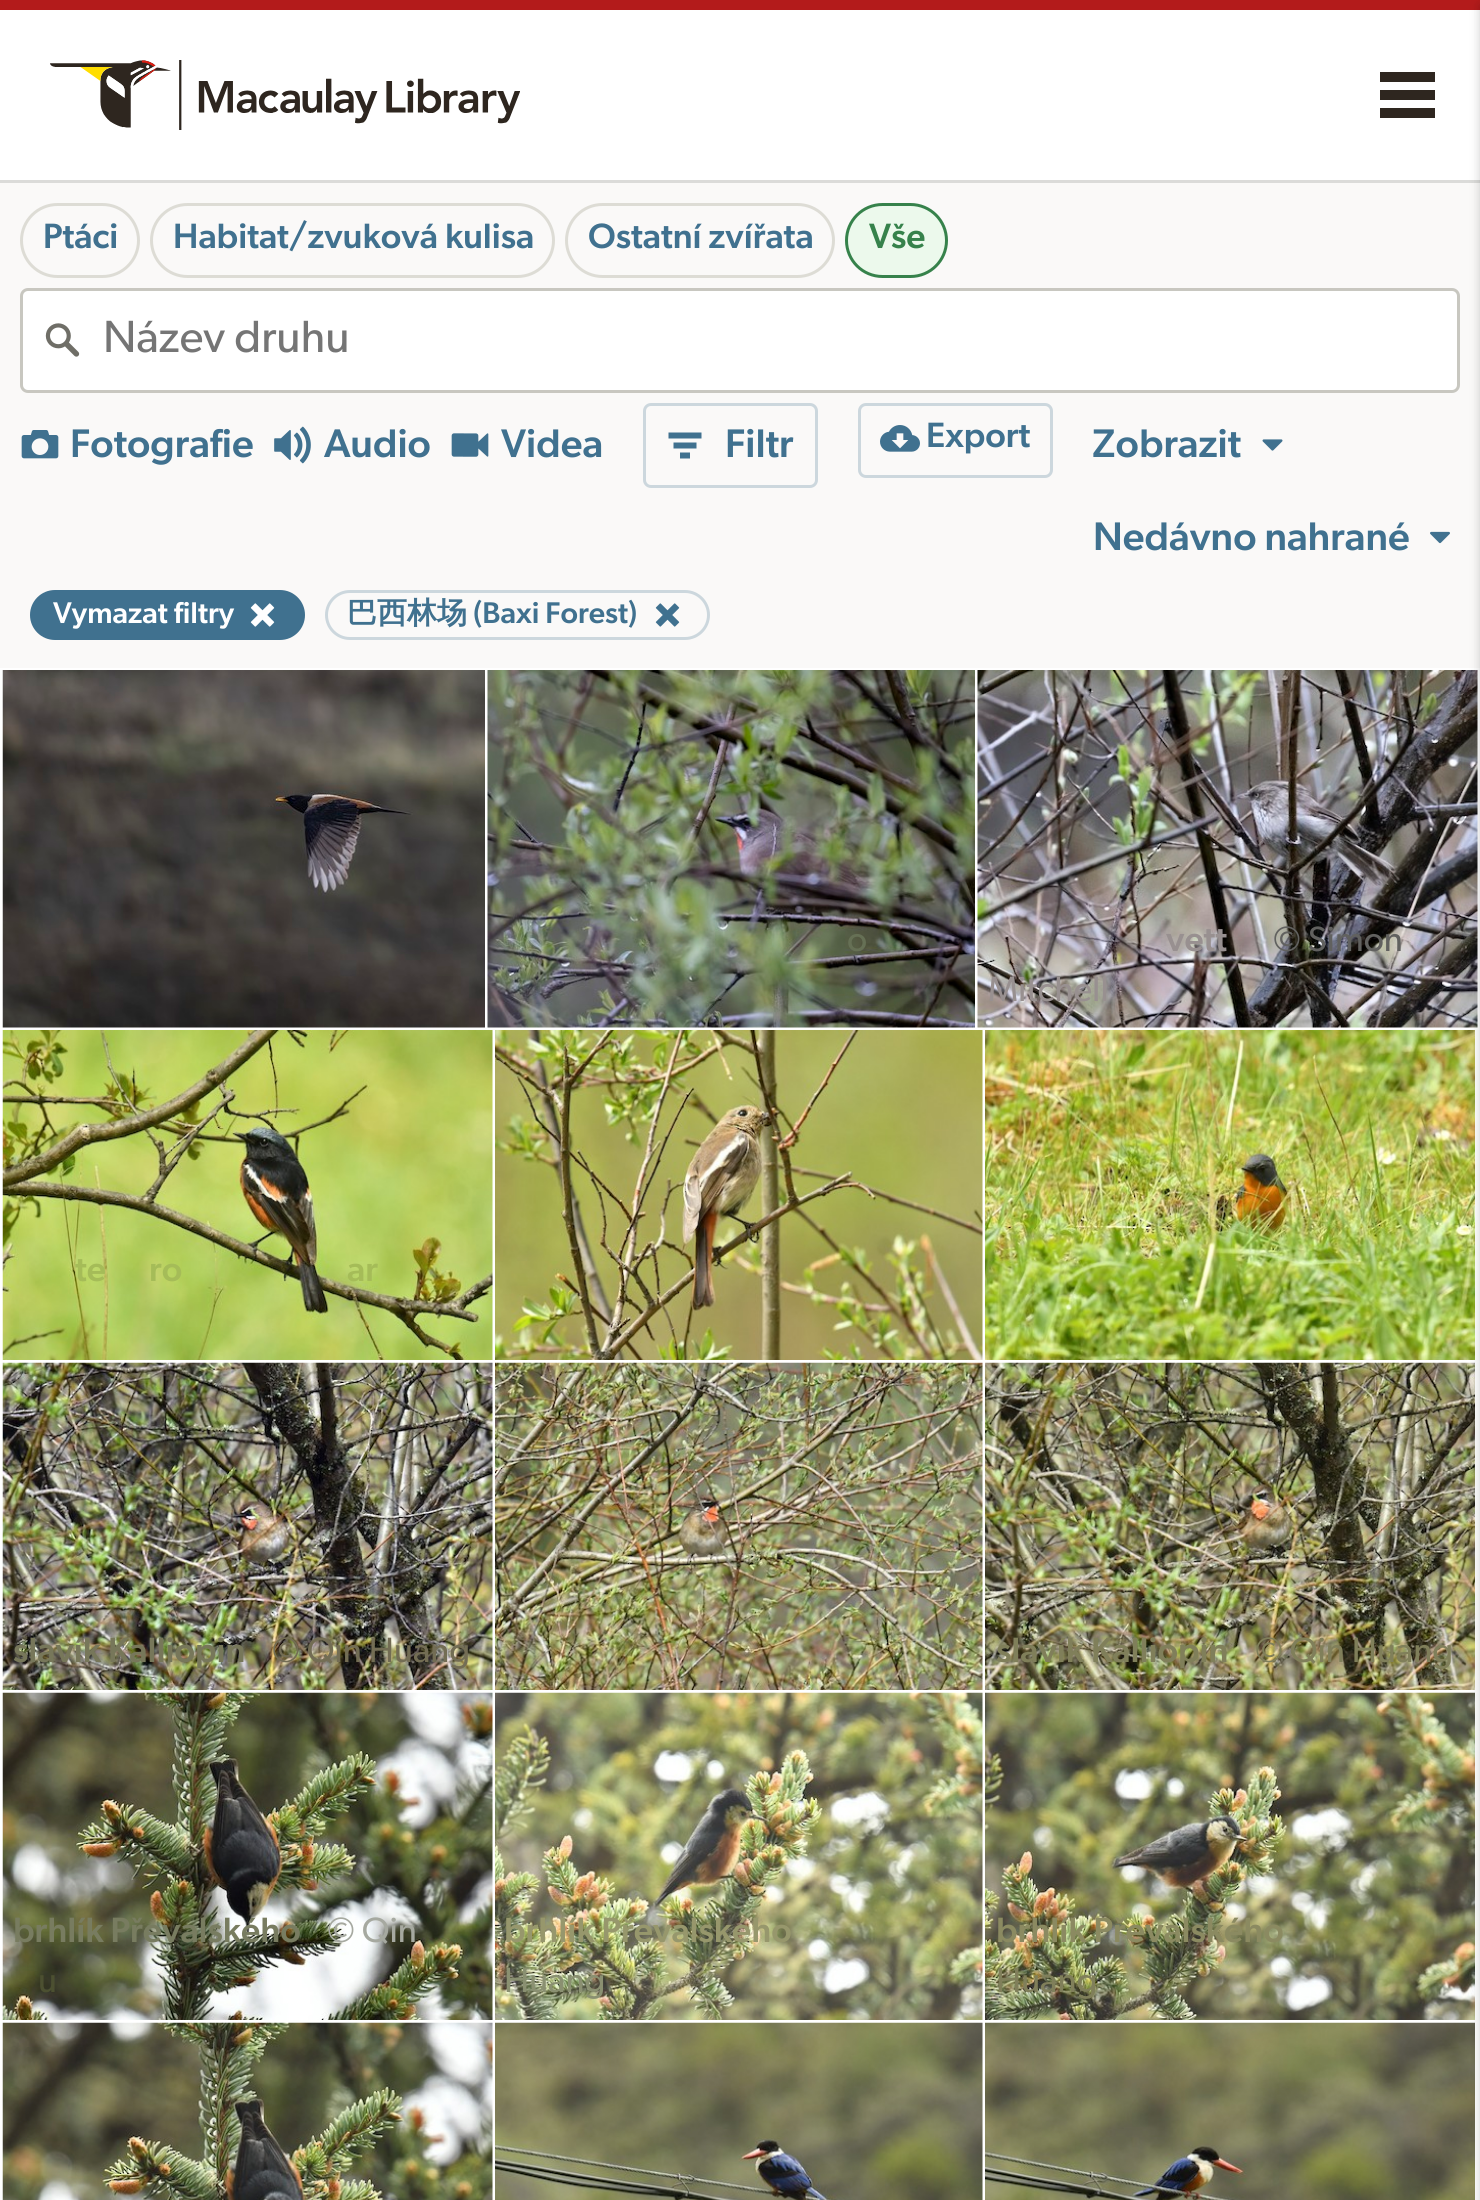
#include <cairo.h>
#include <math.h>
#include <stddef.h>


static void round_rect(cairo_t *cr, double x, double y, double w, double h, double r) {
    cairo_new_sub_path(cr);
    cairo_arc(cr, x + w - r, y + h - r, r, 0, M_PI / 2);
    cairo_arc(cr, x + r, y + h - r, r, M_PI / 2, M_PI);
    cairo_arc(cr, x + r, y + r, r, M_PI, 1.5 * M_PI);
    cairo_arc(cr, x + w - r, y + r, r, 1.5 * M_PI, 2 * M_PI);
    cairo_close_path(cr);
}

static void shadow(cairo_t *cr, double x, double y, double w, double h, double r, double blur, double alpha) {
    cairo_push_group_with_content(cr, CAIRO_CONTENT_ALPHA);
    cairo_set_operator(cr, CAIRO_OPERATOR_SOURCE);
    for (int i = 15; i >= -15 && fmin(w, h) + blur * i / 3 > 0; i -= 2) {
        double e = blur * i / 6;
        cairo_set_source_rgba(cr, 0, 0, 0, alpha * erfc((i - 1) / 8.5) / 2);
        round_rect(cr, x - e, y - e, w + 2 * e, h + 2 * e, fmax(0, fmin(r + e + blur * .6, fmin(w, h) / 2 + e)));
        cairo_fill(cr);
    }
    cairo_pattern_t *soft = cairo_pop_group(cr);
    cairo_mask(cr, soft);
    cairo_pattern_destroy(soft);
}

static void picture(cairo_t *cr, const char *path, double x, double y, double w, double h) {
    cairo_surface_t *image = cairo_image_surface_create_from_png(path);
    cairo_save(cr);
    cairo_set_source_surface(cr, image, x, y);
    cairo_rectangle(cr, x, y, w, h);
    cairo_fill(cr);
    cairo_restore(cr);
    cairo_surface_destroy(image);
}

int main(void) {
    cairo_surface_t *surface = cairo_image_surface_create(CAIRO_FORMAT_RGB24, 1480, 2200);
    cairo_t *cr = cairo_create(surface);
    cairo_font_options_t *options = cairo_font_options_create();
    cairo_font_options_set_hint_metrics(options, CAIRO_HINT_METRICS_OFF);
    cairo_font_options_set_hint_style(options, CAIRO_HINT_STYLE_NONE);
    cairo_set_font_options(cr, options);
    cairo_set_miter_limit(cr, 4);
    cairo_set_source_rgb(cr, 1, 1, 1);
    cairo_paint(cr);
    cairo_set_source_rgb(cr, 0.702, 0.106, 0.106);
    cairo_rectangle(cr, 0, 0, 1480, 10);
    cairo_fill(cr);
    cairo_set_source_rgb(cr, 0.859, 0.859, 0.851);
    cairo_rectangle(cr, 0, 180, 1480, 3);
    cairo_fill(cr);
    picture(cr, "img1.png", 50, 60, 470, 70);
    cairo_set_source_rgb(cr, 0.18, 0.149, 0.122);
    cairo_set_fill_rule(cr, CAIRO_FILL_RULE_EVEN_ODD);
    cairo_new_path(cr);
    cairo_move_to(cr, 1380, 72);
    cairo_line_to(cr, 1435, 72);
    cairo_line_to(cr, 1435, 82);
    cairo_line_to(cr, 1380, 82);
    cairo_close_path(cr);
    cairo_move_to(cr, 1380, 90);
    cairo_line_to(cr, 1435, 90);
    cairo_line_to(cr, 1435, 100);
    cairo_line_to(cr, 1380, 100);
    cairo_close_path(cr);
    cairo_move_to(cr, 1380, 108);
    cairo_line_to(cr, 1435, 108);
    cairo_line_to(cr, 1435, 118);
    cairo_line_to(cr, 1380, 118);
    cairo_close_path(cr);
    cairo_fill(cr);
    cairo_set_source_rgb(cr, 0.98, 0.976, 0.969);
    cairo_rectangle(cr, 0, 183, 1480, 485);
    cairo_fill(cr);
    picture(cr, "img13.png", 977, 670, 501, 358);
    picture(cr, "img16.png", 985, 1030, 490, 330);
    picture(cr, "img19.png", 985, 1362, 490, 328);
    picture(cr, "img22.png", 985, 1692, 490, 328);
    picture(cr, "img25.png", 985, 2022, 490, 178);
    cairo_set_source_rgb(cr, 0, 0, 0);
    shadow(cr, 1480, 5, 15, 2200, 0, 5, 0.2);
    round_rect(cr, 21.5, 204.5, 117, 72, 36);
    cairo_set_source_rgb(cr, 0.867, 0.863, 0.835);
    cairo_set_line_width(cr, 3);
    cairo_stroke(cr);
    cairo_select_font_face(cr, "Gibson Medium", CAIRO_FONT_SLANT_NORMAL, CAIRO_FONT_WEIGHT_NORMAL);
    cairo_set_font_size(cr, 35.25);
    cairo_set_source_rgb(cr, 0.251, 0.443, 0.561);
    cairo_move_to(cr, 43, 248);
    cairo_show_text(cr, "Ptáci");
    round_rect(cr, 151.5, 204.5, 402, 72, 36);
    cairo_set_source_rgb(cr, 0.867, 0.863, 0.835);
    cairo_stroke(cr);
    cairo_set_source_rgb(cr, 0.251, 0.443, 0.561);
    cairo_move_to(cr, 173, 248);
    cairo_show_text(cr, "Habitat/zvuková kulisa");
    round_rect(cr, 566.5, 204.5, 267, 72, 36);
    cairo_set_source_rgb(cr, 0.867, 0.863, 0.835);
    cairo_stroke(cr);
    cairo_set_source_rgb(cr, 0.251, 0.443, 0.561);
    cairo_move_to(cr, 588, 248);
    cairo_show_text(cr, "Ostatní zvířata");
    cairo_set_source_rgb(cr, 0.925, 0.976, 0.922);
    round_rect(cr, 846.5, 204.5, 100, 72, 36);
    cairo_fill_preserve(cr);
    cairo_set_source_rgb(cr, 0.212, 0.51, 0.294);
    cairo_stroke(cr);
    cairo_move_to(cr, 869, 248);
    cairo_show_text(cr, "Vše");
    cairo_set_source_rgb(cr, 1, 1, 1);
    round_rect(cr, 21.5, 289.5, 1437, 102, 6.5);
    cairo_fill_preserve(cr);
    cairo_set_source_rgb(cr, 0.784, 0.78, 0.753);
    cairo_stroke(cr);
    picture(cr, "img2.png", 45, 323, 35, 34);
    cairo_select_font_face(cr, "Gibson", CAIRO_FONT_SLANT_NORMAL, CAIRO_FONT_WEIGHT_NORMAL);
    cairo_set_font_size(cr, 45.25);
    cairo_set_source_rgb(cr, 0.459, 0.459, 0.459);
    cairo_move_to(cr, 103, 352);
    cairo_show_text(cr, "Název druhu");
    picture(cr, "img3.png", 21, 430, 38, 29);
    cairo_select_font_face(cr, "Gibson Medium", CAIRO_FONT_SLANT_NORMAL, CAIRO_FONT_WEIGHT_NORMAL);
    cairo_set_font_size(cr, 40);
    cairo_set_source_rgb(cr, 0.251, 0.443, 0.561);
    cairo_move_to(cr, 70, 457);
    cairo_show_text(cr, "Fotografie");
    picture(cr, "img4.png", 274, 426, 37, 38);
    cairo_move_to(cr, 324, 457);
    cairo_show_text(cr, "Audio");
    picture(cr, "img5.png", 451, 433, 38, 24);
    cairo_move_to(cr, 501, 457);
    cairo_show_text(cr, "Videa");
    round_rect(cr, 644.5, 404.5, 172, 82, 6.5);
    cairo_set_source_rgb(cr, 0.8, 0.843, 0.867);
    cairo_stroke(cr);
    cairo_set_source_rgb(cr, 0.251, 0.443, 0.561);
    cairo_new_path(cr);
    cairo_move_to(cr, 680, 458.5);
    cairo_line_to(cr, 690, 458.5);
    cairo_line_to(cr, 690, 452.5);
    cairo_line_to(cr, 680, 452.5);
    cairo_close_path(cr);
    cairo_move_to(cr, 668.5, 432.5);
    cairo_line_to(cr, 668.5, 438.5);
    cairo_line_to(cr, 701.5, 438.5);
    cairo_line_to(cr, 701.5, 432.5);
    cairo_close_path(cr);
    cairo_move_to(cr, 673.5, 448.5);
    cairo_line_to(cr, 696.5, 448.5);
    cairo_line_to(cr, 696.5, 442.5);
    cairo_line_to(cr, 673.5, 442.5);
    cairo_close_path(cr);
    cairo_fill(cr);
    cairo_move_to(cr, 725, 457);
    cairo_show_text(cr, "Filtr");
    round_rect(cr, 859.5, 404.5, 192, 72, 6.5);
    cairo_set_source_rgb(cr, 0.8, 0.843, 0.867);
    cairo_stroke(cr);
    picture(cr, "img6.png", 880, 425, 40, 27);
    cairo_set_font_size(cr, 35.25);
    cairo_set_source_rgb(cr, 0.251, 0.443, 0.561);
    cairo_move_to(cr, 926, 447);
    cairo_show_text(cr, "Export");
    cairo_set_font_size(cr, 40);
    cairo_move_to(cr, 1092, 457);
    cairo_show_text(cr, "Zobrazit");
    picture(cr, "img7.png", 1262, 439, 21, 12);
    cairo_move_to(cr, 1093, 550);
    cairo_show_text(cr, "Nedávno nahrané");
    picture(cr, "img8.png", 1430, 531, 20, 13);
    round_rect(cr, 30, 590, 275, 50, 25);
    cairo_fill(cr);
    cairo_set_font_size(cr, 30);
    cairo_set_source_rgb(cr, 1, 1, 1);
    cairo_move_to(cr, 53, 623);
    cairo_show_text(cr, "Vymazat filtry");
    picture(cr, "img9.png", 250, 603, 25, 24);
    round_rect(cr, 326.5, 591.5, 382, 47, 23.5);
    cairo_set_source_rgb(cr, 0.8, 0.843, 0.867);
    cairo_stroke(cr);
    cairo_select_font_face(cr, "WenQuanYi Zen Hei", CAIRO_FONT_SLANT_NORMAL, CAIRO_FONT_WEIGHT_BOLD);
    cairo_set_source_rgb(cr, 0.251, 0.443, 0.561);
    cairo_move_to(cr, 347, 623);
    cairo_show_text(cr, "巴西林场");
    cairo_select_font_face(cr, "Gibson Medium", CAIRO_FONT_SLANT_NORMAL, CAIRO_FONT_WEIGHT_NORMAL);
    cairo_move_to(cr, 473, 623);
    cairo_show_text(cr, "(Baxi Forest)");
    picture(cr, "img10.png", 655, 603, 25, 24);
    picture(cr, "img11.png", 2, 670, 483, 358);
    picture(cr, "img12.png", 487, 670, 488, 358);
    cairo_select_font_face(cr, "Gibson", CAIRO_FONT_SLANT_NORMAL, CAIRO_FONT_WEIGHT_NORMAL);
    cairo_set_font_size(cr, 35.25);
    cairo_set_source_rgb(cr, 0.4, 0.439, 0.333);
    cairo_move_to(cr, 847, 951);
    cairo_show_text(cr, "o");
    cairo_select_font_face(cr, "Gibson Medium", CAIRO_FONT_SLANT_NORMAL, CAIRO_FONT_WEIGHT_NORMAL);
    cairo_set_source_rgb(cr, 0.596, 0.565, 0.565);
    cairo_move_to(cr, 1166, 951);
    cairo_show_text(cr, "vett");
    cairo_select_font_face(cr, "Gibson", CAIRO_FONT_SLANT_NORMAL, CAIRO_FONT_WEIGHT_NORMAL);
    cairo_set_source_rgb(cr, 0.38, 0.38, 0.373);
    cairo_move_to(cr, 1273, 951);
    cairo_show_text(cr, "© Simon");
    cairo_set_source_rgb(cr, 0.596, 0.565, 0.565);
    cairo_move_to(cr, 988, 1001);
    cairo_show_text(cr, "Mitchell");
    picture(cr, "img14.png", 2, 1030, 491, 330);
    cairo_select_font_face(cr, "Gibson Medium", CAIRO_FONT_SLANT_NORMAL, CAIRO_FONT_WEIGHT_NORMAL);
    cairo_set_source_rgb(cr, 0.647, 0.737, 0.345);
    cairo_move_to(cr, 75, 1281);
    cairo_show_text(cr, "te");
    cairo_move_to(cr, 149, 1281);
    cairo_show_text(cr, "ro");
    cairo_move_to(cr, 347, 1281);
    cairo_show_text(cr, "ar");
    picture(cr, "img15.png", 495, 1030, 488, 330);
    picture(cr, "img17.png", 2, 1362, 491, 328);
    cairo_set_source_rgb(cr, 0.467, 0.467, 0.353);
    cairo_move_to(cr, 13, 1662);
    cairo_show_text(cr, "slavík Kalliopin");
    cairo_select_font_face(cr, "Gibson", CAIRO_FONT_SLANT_NORMAL, CAIRO_FONT_WEIGHT_NORMAL);
    cairo_set_source_rgb(cr, 0.451, 0.427, 0.329);
    cairo_move_to(cr, 272, 1662);
    cairo_show_text(cr, "© Qin Huang");
    picture(cr, "img18.png", 495, 1362, 488, 328);
    cairo_select_font_face(cr, "Gibson Medium", CAIRO_FONT_SLANT_NORMAL, CAIRO_FONT_WEIGHT_NORMAL);
    cairo_set_source_rgb(cr, 0.502, 0.498, 0.353);
    cairo_move_to(cr, 996, 1662);
    cairo_show_text(cr, "slavík Kalliopin");
    cairo_select_font_face(cr, "Gibson", CAIRO_FONT_SLANT_NORMAL, CAIRO_FONT_WEIGHT_NORMAL);
    cairo_move_to(cr, 1255, 1662);
    cairo_show_text(cr, "© Qin Huang");
    picture(cr, "img20.png", 2, 1692, 491, 328);
    cairo_select_font_face(cr, "Gibson Medium", CAIRO_FONT_SLANT_NORMAL, CAIRO_FONT_WEIGHT_NORMAL);
    cairo_set_source_rgb(cr, 0.471, 0.486, 0.376);
    cairo_move_to(cr, 13, 1942);
    cairo_show_text(cr, "brhlík Převalského");
    cairo_select_font_face(cr, "Gibson", CAIRO_FONT_SLANT_NORMAL, CAIRO_FONT_WEIGHT_NORMAL);
    cairo_set_source_rgb(cr, 0.651, 0.663, 0.627);
    cairo_move_to(cr, 327, 1942);
    cairo_show_text(cr, "© Qin");
    cairo_set_source_rgb(cr, 0.298, 0.314, 0.192);
    cairo_move_to(cr, 38, 1992);
    cairo_show_text(cr, "u");
    picture(cr, "img21.png", 495, 1692, 488, 328);
    cairo_select_font_face(cr, "Gibson Medium", CAIRO_FONT_SLANT_NORMAL, CAIRO_FONT_WEIGHT_NORMAL);
    cairo_set_source_rgb(cr, 0.592, 0.592, 0.424);
    cairo_move_to(cr, 504, 1942);
    cairo_show_text(cr, "brhlík Převalského");
    cairo_select_font_face(cr, "Gibson", CAIRO_FONT_SLANT_NORMAL, CAIRO_FONT_WEIGHT_NORMAL);
    cairo_set_source_rgb(cr, 0.541, 0.565, 0.443);
    cairo_move_to(cr, 504, 1992);
    cairo_show_text(cr, "Huang");
    cairo_select_font_face(cr, "Gibson Medium", CAIRO_FONT_SLANT_NORMAL, CAIRO_FONT_WEIGHT_NORMAL);
    cairo_set_source_rgb(cr, 0.545, 0.541, 0.38);
    cairo_move_to(cr, 996, 1942);
    cairo_show_text(cr, "brhlík Převalského");
    cairo_select_font_face(cr, "Gibson", CAIRO_FONT_SLANT_NORMAL, CAIRO_FONT_WEIGHT_NORMAL);
    cairo_set_source_rgb(cr, 0.502, 0.498, 0.353);
    cairo_move_to(cr, 996, 1992);
    cairo_show_text(cr, "Huang");
    picture(cr, "img23.png", 2, 2022, 491, 178);
    picture(cr, "img24.png", 495, 2022, 488, 178);
    cairo_surface_write_to_png(surface, "page.png");
    cairo_font_options_destroy(options);
    cairo_destroy(cr);
    cairo_surface_destroy(surface);
    return 0;
}
